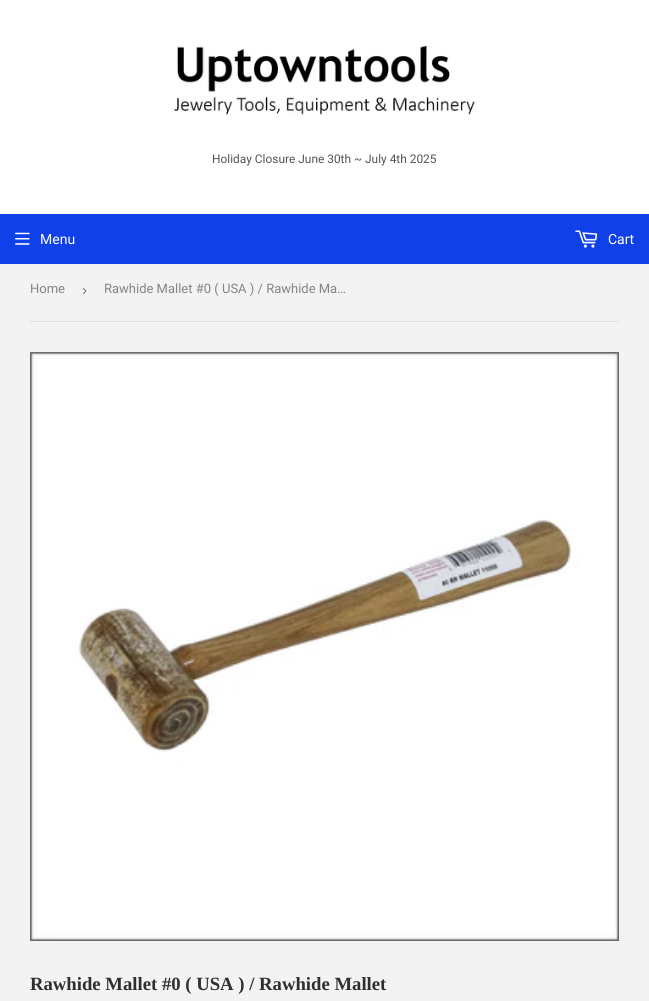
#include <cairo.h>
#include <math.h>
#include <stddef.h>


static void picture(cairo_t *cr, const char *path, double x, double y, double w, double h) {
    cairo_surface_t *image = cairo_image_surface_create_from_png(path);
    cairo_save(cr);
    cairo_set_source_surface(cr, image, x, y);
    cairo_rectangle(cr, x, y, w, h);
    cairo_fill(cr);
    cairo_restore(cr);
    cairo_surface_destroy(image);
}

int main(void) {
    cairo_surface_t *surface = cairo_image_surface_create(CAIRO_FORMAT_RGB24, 649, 1001);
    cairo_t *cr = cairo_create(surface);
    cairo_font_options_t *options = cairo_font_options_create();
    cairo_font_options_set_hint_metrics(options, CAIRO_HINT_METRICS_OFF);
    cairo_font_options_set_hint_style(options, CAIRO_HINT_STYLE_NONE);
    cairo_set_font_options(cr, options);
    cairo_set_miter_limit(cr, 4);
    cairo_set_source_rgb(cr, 0.953, 0.953, 0.953);
    cairo_paint(cr);
    cairo_set_source_rgb(cr, 1, 1, 1);
    cairo_rectangle(cr, 0, 0, 649, 214);
    cairo_fill(cr);
    picture(cr, "img1.png", 173, 45, 304, 70);
    cairo_select_font_face(cr, "Roboto", CAIRO_FONT_SLANT_NORMAL, CAIRO_FONT_WEIGHT_NORMAL);
    cairo_set_font_size(cr, 11.9);
    cairo_set_source_rgb(cr, 0.329, 0.329, 0.329);
    cairo_move_to(cr, 212, 163);
    cairo_show_text(cr, "Holiday Closure June 30th ~ July 4th 2025");
    cairo_set_source_rgb(cr, 0.063, 0.255, 0.91);
    cairo_rectangle(cr, 0, 214, 649, 50);
    cairo_fill(cr);
    picture(cr, "img2.png", 15, 232, 15, 13);
    cairo_set_font_size(cr, 14);
    cairo_set_source_rgb(cr, 1, 1, 1);
    cairo_move_to(cr, 40, 244);
    cairo_show_text(cr, "Menu");
    picture(cr, "img3.png", 575, 230, 23, 18);
    cairo_move_to(cr, 608, 244);
    cairo_show_text(cr, "Cart");
    cairo_set_source_rgb(cr, 0.871, 0.871, 0.871);
    cairo_rectangle(cr, 30, 321, 589, 1);
    cairo_fill(cr);
    cairo_set_font_size(cr, 13);
    cairo_set_source_rgb(cr, 0.522, 0.522, 0.522);
    cairo_move_to(cr, 30, 293);
    cairo_show_text(cr, "Home");
    cairo_select_font_face(cr, "Liberation Sans", CAIRO_FONT_SLANT_NORMAL, CAIRO_FONT_WEIGHT_NORMAL);
    cairo_set_font_size(cr, 15);
    cairo_set_source_rgb(cr, 0.463, 0.463, 0.463);
    cairo_move_to(cr, 82, 295);
    cairo_show_text(cr, "›");
    cairo_select_font_face(cr, "Roboto", CAIRO_FONT_SLANT_NORMAL, CAIRO_FONT_WEIGHT_NORMAL);
    cairo_set_font_size(cr, 13);
    cairo_set_source_rgb(cr, 0.522, 0.522, 0.522);
    cairo_move_to(cr, 104, 293);
    cairo_show_text(cr, "Rawhide Mallet #0 ( USA ) / Rawhide Ma…");
    picture(cr, "img4.png", 30, 352, 589, 589);
    cairo_select_font_face(cr, "Liberation Serif", CAIRO_FONT_SLANT_NORMAL, CAIRO_FONT_WEIGHT_BOLD);
    cairo_set_font_size(cr, 18.7);
    cairo_set_source_rgb(cr, 0.184, 0.184, 0.184);
    cairo_move_to(cr, 30, 990);
    cairo_show_text(cr, "Rawhide Mallet #0 ( USA ) / Rawhide Mallet");
    cairo_surface_write_to_png(surface, "page.png");
    cairo_font_options_destroy(options);
    cairo_destroy(cr);
    cairo_surface_destroy(surface);
    return 0;
}
